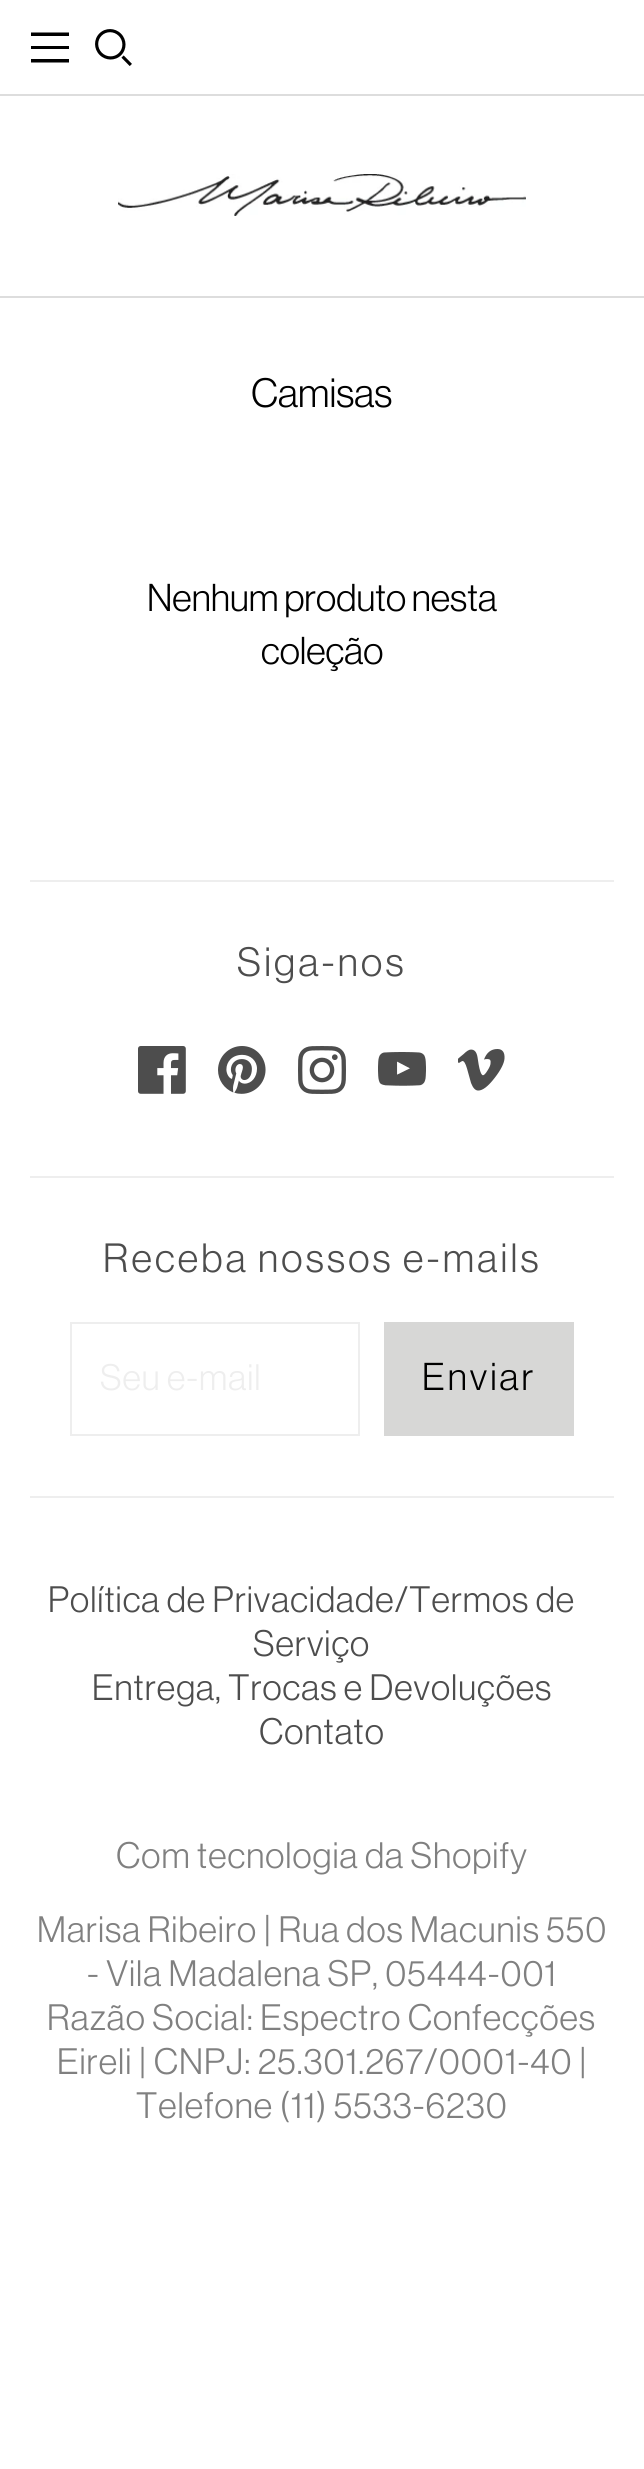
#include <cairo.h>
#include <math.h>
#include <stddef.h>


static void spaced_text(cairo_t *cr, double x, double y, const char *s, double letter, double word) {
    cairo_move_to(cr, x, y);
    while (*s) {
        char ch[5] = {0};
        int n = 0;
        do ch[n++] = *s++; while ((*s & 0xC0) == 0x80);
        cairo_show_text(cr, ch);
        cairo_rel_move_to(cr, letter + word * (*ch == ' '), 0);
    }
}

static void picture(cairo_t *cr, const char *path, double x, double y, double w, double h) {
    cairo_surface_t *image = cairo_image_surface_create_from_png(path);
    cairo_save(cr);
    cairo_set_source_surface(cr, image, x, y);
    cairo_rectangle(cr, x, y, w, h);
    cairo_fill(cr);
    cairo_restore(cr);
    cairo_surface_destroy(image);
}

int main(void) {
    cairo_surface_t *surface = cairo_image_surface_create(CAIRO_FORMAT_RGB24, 644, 2469);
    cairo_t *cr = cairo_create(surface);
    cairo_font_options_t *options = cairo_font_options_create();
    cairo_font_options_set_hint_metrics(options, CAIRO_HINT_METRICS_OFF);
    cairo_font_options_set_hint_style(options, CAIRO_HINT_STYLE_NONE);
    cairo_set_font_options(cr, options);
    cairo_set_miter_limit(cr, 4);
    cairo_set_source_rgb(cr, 1, 1, 1);
    cairo_paint(cr);
    cairo_set_source_rgb(cr, 0.867, 0.867, 0.867);
    cairo_rectangle(cr, 0, 296, 644, 2);
    cairo_fill(cr);
    cairo_set_source_rgb(cr, 0, 0, 0);
    cairo_set_fill_rule(cr, CAIRO_FILL_RULE_EVEN_ODD);
    cairo_new_path(cr);
    cairo_move_to(cr, 69, 36);
    cairo_line_to(cr, 31, 36);
    cairo_line_to(cr, 31, 32.5);
    cairo_line_to(cr, 69, 32.5);
    cairo_close_path(cr);
    cairo_move_to(cr, 69, 49);
    cairo_line_to(cr, 31, 49);
    cairo_line_to(cr, 31, 46);
    cairo_line_to(cr, 69, 46);
    cairo_close_path(cr);
    cairo_move_to(cr, 31, 62.5);
    cairo_line_to(cr, 69, 62.5);
    cairo_line_to(cr, 69, 59);
    cairo_line_to(cr, 31, 59);
    cairo_close_path(cr);
    cairo_fill(cr);
    picture(cr, "img1.png", 95, 29, 37, 37);
    cairo_set_source_rgb(cr, 0.867, 0.867, 0.867);
    cairo_rectangle(cr, 0, 94, 644, 2);
    cairo_fill(cr);
    picture(cr, "img2.png", 118, 174, 408, 42);
    cairo_select_font_face(cr, "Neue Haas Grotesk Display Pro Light", CAIRO_FONT_SLANT_NORMAL, CAIRO_FONT_WEIGHT_NORMAL);
    cairo_set_font_size(cr, 40);
    cairo_set_source_rgb(cr, 0, 0, 0);
    cairo_move_to(cr, 251, 407);
    cairo_show_text(cr, "Camisas");
    cairo_set_font_size(cr, 38);
    cairo_move_to(cr, 147, 611);
    cairo_show_text(cr, "Nenhum produto nesta");
    cairo_move_to(cr, 261, 664);
    cairo_show_text(cr, "coleção");
    cairo_set_source_rgb(cr, 0.933, 0.933, 0.933);
    cairo_rectangle(cr, 30, 880, 584, 2);
    cairo_fill(cr);
    cairo_rectangle(cr, 30, 1496, 584, 2);
    cairo_fill(cr);
    cairo_set_font_size(cr, 40);
    cairo_set_source_rgb(cr, 0.302, 0.302, 0.302);
    spaced_text(cr, 237, 976, "Siga-nos", 3.2, 0);
    picture(cr, "img3.png", 138, 1046, 48, 48);
    picture(cr, "img4.png", 218, 1046, 48, 48);
    picture(cr, "img5.png", 298, 1046, 48, 48);
    picture(cr, "img6.png", 378, 1052, 48, 34);
    picture(cr, "img7.png", 458, 1049, 47, 42);
    cairo_set_source_rgb(cr, 0.933, 0.933, 0.933);
    cairo_rectangle(cr, 30, 1176, 584, 2);
    cairo_fill(cr);
    cairo_set_source_rgb(cr, 0.302, 0.302, 0.302);
    spaced_text(cr, 103, 1272, "Receba nossos e-mails", 3.2, 0);
    cairo_rectangle(cr, 71, 1323, 288, 112);
    cairo_set_source_rgb(cr, 0.933, 0.933, 0.933);
    cairo_stroke(cr);
    cairo_set_font_size(cr, 36);
    spaced_text(cr, 100, 1390, "Seu e-mail", 1, 0);
    cairo_set_source_rgb(cr, 0.843, 0.843, 0.839);
    cairo_rectangle(cr, 384, 1322, 190, 114);
    cairo_fill(cr);
    cairo_set_font_size(cr, 38);
    cairo_set_source_rgb(cr, 0, 0, 0);
    spaced_text(cr, 422, 1390, "Enviar", 3, 0);
    cairo_set_font_size(cr, 36);
    cairo_set_source_rgb(cr, 0.302, 0.302, 0.302);
    spaced_text(cr, 48, 1612, "Política de Privacidade/Termos de", 1, 0);
    spaced_text(cr, 253, 1656, "Serviço", 1, 0);
    spaced_text(cr, 92, 1700, "Entrega, Trocas e Devoluções", 1, 0);
    spaced_text(cr, 259, 1744, "Contato", 1, 0);
    cairo_set_source_rgb(cr, 0.502, 0.502, 0.502);
    spaced_text(cr, 116, 1868, "Com tecnologia da Shopify", 1, 0);
    spaced_text(cr, 37, 1942, "Marisa Ribeiro | Rua dos Macunis 550", 1, 0);
    spaced_text(cr, 87, 1986, "- Vila Madalena SP, 05444-001", 1, 0);
    spaced_text(cr, 47, 2030, "Razão Social: Espectro Confecções", 1, 0);
    spaced_text(cr, 57, 2074, "Eireli | CNPJ: 25.301.267/0001-40 |", 1, 0);
    spaced_text(cr, 136, 2118, "Telefone (11) 5533-6230", 1, 0);
    cairo_surface_write_to_png(surface, "page.png");
    cairo_font_options_destroy(options);
    cairo_destroy(cr);
    cairo_surface_destroy(surface);
    return 0;
}
